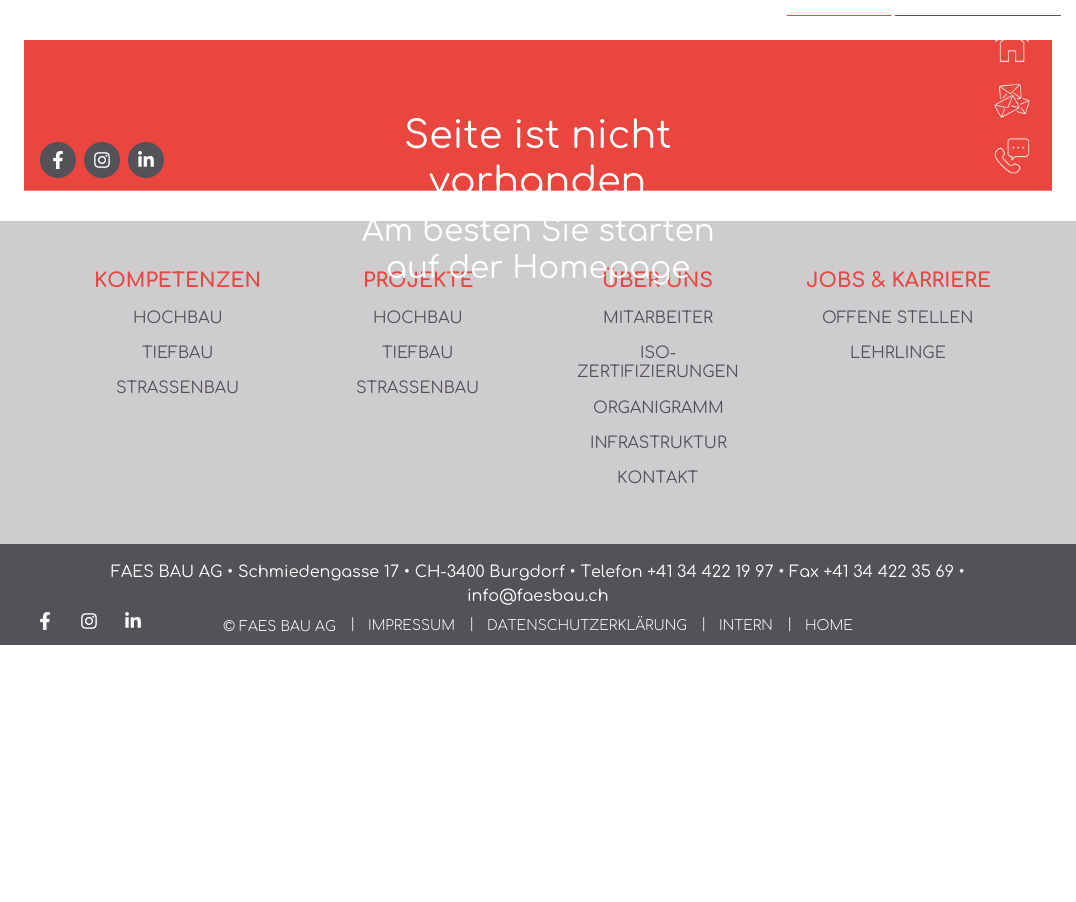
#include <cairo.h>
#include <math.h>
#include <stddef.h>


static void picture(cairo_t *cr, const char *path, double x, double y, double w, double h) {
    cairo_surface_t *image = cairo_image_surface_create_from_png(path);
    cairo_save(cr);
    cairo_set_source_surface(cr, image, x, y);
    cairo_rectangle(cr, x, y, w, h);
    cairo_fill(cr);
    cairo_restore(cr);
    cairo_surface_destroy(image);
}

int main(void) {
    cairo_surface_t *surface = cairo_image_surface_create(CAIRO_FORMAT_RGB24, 1076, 902);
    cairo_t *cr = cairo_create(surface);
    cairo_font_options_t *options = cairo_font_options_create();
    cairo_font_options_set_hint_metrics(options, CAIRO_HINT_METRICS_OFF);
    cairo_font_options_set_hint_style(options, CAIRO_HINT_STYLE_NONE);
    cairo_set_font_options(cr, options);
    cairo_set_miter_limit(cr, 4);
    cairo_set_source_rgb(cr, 1, 1, 1);
    cairo_paint(cr);
    picture(cr, "img1.png", 786, 15, 275, 1);
    cairo_set_source_rgb(cr, 0.902, 0.286, 0.263);
    cairo_rectangle(cr, 24, 40, 1028, 150);
    cairo_fill(cr);
    cairo_set_source_rgba(cr, 0.914, 0.271, 0.243, 0.7);
    cairo_rectangle(cr, 24, 40, 1028, 151);
    cairo_fill(cr);
    cairo_set_source_rgb(cr, 0.329, 0.318, 0.345);
    cairo_arc(cr, 58, 160, 18, 0, 2 * M_PI);
    cairo_fill(cr);
    picture(cr, "img2.png", 53, 151, 10, 18);
    cairo_arc(cr, 102, 160, 18, 0, 2 * M_PI);
    cairo_fill(cr);
    picture(cr, "img3.png", 94, 152, 16, 16);
    cairo_arc(cr, 146, 160, 18, 0, 2 * M_PI);
    cairo_fill(cr);
    picture(cr, "img4.png", 138, 151, 16, 16);
    cairo_select_font_face(cr, "Comfortaa", CAIRO_FONT_SLANT_NORMAL, CAIRO_FONT_WEIGHT_NORMAL);
    cairo_set_font_size(cr, 38);
    cairo_set_source_rgb(cr, 1, 1, 1);
    cairo_move_to(cr, 404, 148);
    cairo_show_text(cr, "Seite ist nicht");
    cairo_move_to(cr, 429, 194);
    cairo_show_text(cr, "vorhanden");
    cairo_set_source_rgb(cr, 0.812, 0.8, 0.812);
    cairo_rectangle(cr, 0, 221, 1076, 323);
    cairo_fill(cr);
    cairo_set_font_size(cr, 30.9);
    cairo_set_source_rgb(cr, 1, 1, 1);
    cairo_move_to(cr, 362, 241);
    cairo_show_text(cr, "Am besten Sie starten");
    cairo_select_font_face(cr, "Comfortaa", CAIRO_FONT_SLANT_NORMAL, CAIRO_FONT_WEIGHT_BOLD);
    cairo_set_font_size(cr, 20);
    cairo_set_source_rgb(cr, 0.902, 0.286, 0.263);
    cairo_move_to(cr, 363, 287);
    cairo_show_text(cr, "PROJEKTE");
    cairo_move_to(cr, 602, 287);
    cairo_show_text(cr, "ÜBER UNS");
    cairo_select_font_face(cr, "Comfortaa", CAIRO_FONT_SLANT_NORMAL, CAIRO_FONT_WEIGHT_NORMAL);
    cairo_set_font_size(cr, 30.9);
    cairo_set_source_rgb(cr, 1, 1, 1);
    cairo_move_to(cr, 386, 278);
    cairo_show_text(cr, "auf der Homepage");
    picture(cr, "img5.png", 994, 40, 36, 22);
    picture(cr, "img6.png", 994, 83, 36, 35);
    picture(cr, "img7.png", 994, 138, 36, 36);
    cairo_select_font_face(cr, "Comfortaa", CAIRO_FONT_SLANT_NORMAL, CAIRO_FONT_WEIGHT_BOLD);
    cairo_set_font_size(cr, 20);
    cairo_set_source_rgb(cr, 0.902, 0.286, 0.263);
    cairo_move_to(cr, 94, 287);
    cairo_show_text(cr, "KOMPETENZEN");
    cairo_select_font_face(cr, "Comfortaa", CAIRO_FONT_SLANT_NORMAL, CAIRO_FONT_WEIGHT_NORMAL);
    cairo_set_font_size(cr, 16);
    cairo_set_source_rgb(cr, 0.329, 0.318, 0.345);
    cairo_move_to(cr, 133, 323);
    cairo_show_text(cr, "HOCHBAU");
    cairo_move_to(cr, 142, 358);
    cairo_show_text(cr, "TIEFBAU");
    cairo_move_to(cr, 116, 393);
    cairo_show_text(cr, "STRASSENBAU");
    cairo_move_to(cr, 373, 323);
    cairo_show_text(cr, "HOCHBAU");
    cairo_move_to(cr, 382, 358);
    cairo_show_text(cr, "TIEFBAU");
    cairo_move_to(cr, 356, 393);
    cairo_show_text(cr, "STRASSENBAU");
    cairo_move_to(cr, 603, 323);
    cairo_show_text(cr, "MITARBEITER");
    cairo_move_to(cr, 640, 358);
    cairo_show_text(cr, "ISO-");
    cairo_move_to(cr, 577, 377);
    cairo_show_text(cr, "ZERTIFIZIERUNGEN");
    cairo_move_to(cr, 593, 413);
    cairo_show_text(cr, "ORGANIGRAMM");
    cairo_move_to(cr, 590, 448);
    cairo_show_text(cr, "INFRASTRUKTUR");
    cairo_move_to(cr, 617, 483);
    cairo_show_text(cr, "KONTAKT");
    cairo_select_font_face(cr, "Comfortaa", CAIRO_FONT_SLANT_NORMAL, CAIRO_FONT_WEIGHT_BOLD);
    cairo_set_font_size(cr, 20);
    cairo_set_source_rgb(cr, 0.902, 0.286, 0.263);
    cairo_move_to(cr, 806, 287);
    cairo_show_text(cr, "JOBS & KARRIERE");
    cairo_select_font_face(cr, "Comfortaa", CAIRO_FONT_SLANT_NORMAL, CAIRO_FONT_WEIGHT_NORMAL);
    cairo_set_font_size(cr, 16);
    cairo_set_source_rgb(cr, 0.329, 0.318, 0.345);
    cairo_move_to(cr, 822, 323);
    cairo_show_text(cr, "OFFENE STELLEN");
    cairo_move_to(cr, 850, 358);
    cairo_show_text(cr, "LEHRLINGE");
    cairo_rectangle(cr, 0, 544, 1076, 101);
    cairo_fill(cr);
    picture(cr, "img2.png", 40, 612, 10, 18);
    picture(cr, "img3.png", 81, 613, 16, 16);
    picture(cr, "img4.png", 125, 612, 16, 16);
    cairo_set_source_rgb(cr, 1, 1, 1);
    cairo_move_to(cr, 111, 577);
    cairo_show_text(cr, "FAES BAU AG • Schmiedengasse 17 • CH-3400 Burgdorf • Telefon +41 34 422 19 97 • Fax +41 34 422 35 69 •");
    cairo_move_to(cr, 467, 601);
    cairo_show_text(cr, "info@faesbau.ch");
    cairo_select_font_face(cr, "Comfortaa Light", CAIRO_FONT_SLANT_NORMAL, CAIRO_FONT_WEIGHT_NORMAL);
    cairo_set_font_size(cr, 14);
    cairo_move_to(cr, 223, 631);
    cairo_show_text(cr, "© FAES BAU AG");
    cairo_move_to(cr, 350, 628);
    cairo_show_text(cr, "|");
    cairo_move_to(cr, 368, 630);
    cairo_show_text(cr, "IMPRESSUM");
    cairo_move_to(cr, 469, 628);
    cairo_show_text(cr, "|");
    cairo_move_to(cr, 487, 630);
    cairo_show_text(cr, "DATENSCHUTZERKLÄRUNG");
    cairo_move_to(cr, 701, 628);
    cairo_show_text(cr, "|");
    cairo_move_to(cr, 719, 630);
    cairo_show_text(cr, "INTERN");
    cairo_move_to(cr, 787, 628);
    cairo_show_text(cr, "|");
    cairo_move_to(cr, 805, 630);
    cairo_show_text(cr, "HOME");
    cairo_surface_write_to_png(surface, "page.png");
    cairo_font_options_destroy(options);
    cairo_destroy(cr);
    cairo_surface_destroy(surface);
    return 0;
}
